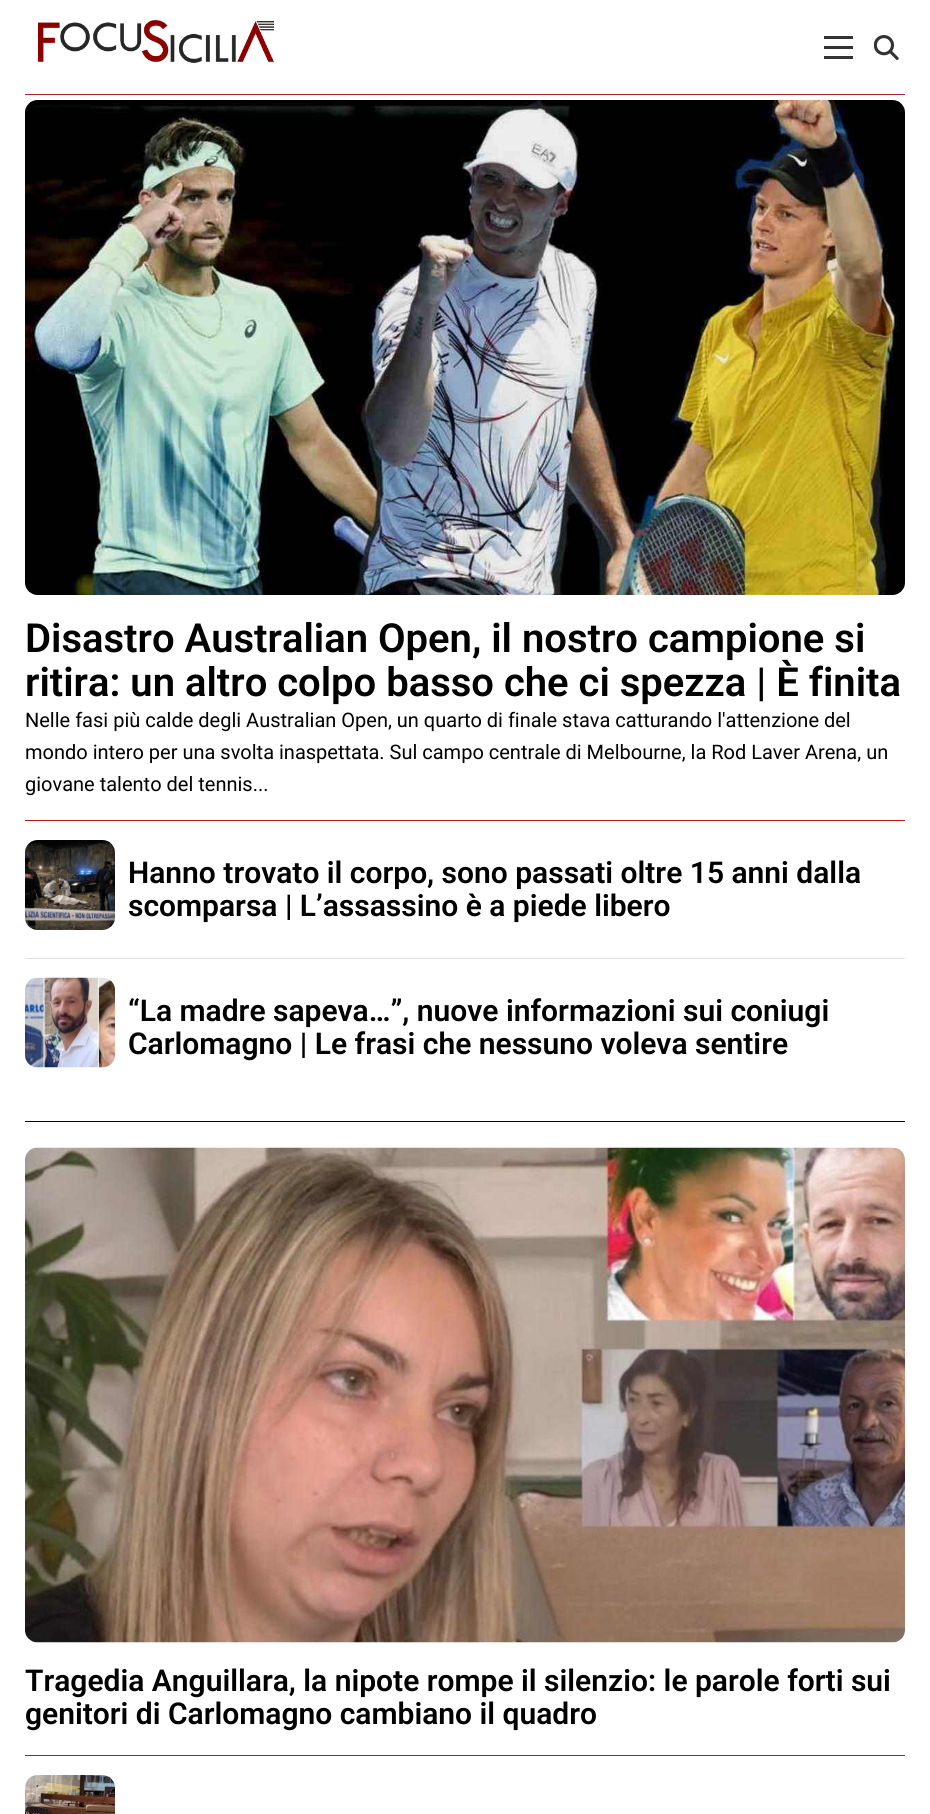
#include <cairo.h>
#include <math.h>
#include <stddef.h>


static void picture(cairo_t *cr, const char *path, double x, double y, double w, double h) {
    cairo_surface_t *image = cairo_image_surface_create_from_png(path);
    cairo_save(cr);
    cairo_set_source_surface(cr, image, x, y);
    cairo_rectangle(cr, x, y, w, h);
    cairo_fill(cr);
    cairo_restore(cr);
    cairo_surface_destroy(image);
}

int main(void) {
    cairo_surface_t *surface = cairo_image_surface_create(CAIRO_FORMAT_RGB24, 930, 1814);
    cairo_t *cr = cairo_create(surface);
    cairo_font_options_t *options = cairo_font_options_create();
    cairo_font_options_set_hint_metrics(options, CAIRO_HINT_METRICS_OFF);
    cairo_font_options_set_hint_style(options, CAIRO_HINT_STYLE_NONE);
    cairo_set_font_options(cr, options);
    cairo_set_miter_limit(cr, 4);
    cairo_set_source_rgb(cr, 1, 1, 1);
    cairo_paint(cr);
    cairo_set_source_rgb(cr, 0.647, 0.157, 0.18);
    cairo_rectangle(cr, 25, 94, 880, 1);
    cairo_fill(cr);
    picture(cr, "img1.png", 38, 20, 236, 43);
    cairo_set_source_rgb(cr, 0.2, 0.2, 0.2);
    cairo_rectangle(cr, 824, 46, 29, 3);
    cairo_fill(cr);
    cairo_rectangle(cr, 824, 36, 29, 3);
    cairo_fill(cr);
    cairo_rectangle(cr, 824, 56, 29, 3);
    cairo_fill(cr);
    picture(cr, "img2.png", 874, 35, 25, 25);
    cairo_set_source_rgb(cr, 0, 0, 0);
    cairo_rectangle(cr, 25, 1121, 880, 1);
    cairo_fill(cr);
    picture(cr, "img3.png", 25, 100, 880, 495);
    cairo_select_font_face(cr, "Roboto SemiBold", CAIRO_FONT_SLANT_NORMAL, CAIRO_FONT_WEIGHT_NORMAL);
    cairo_set_font_size(cr, 40);
    cairo_move_to(cr, 25, 652);
    cairo_show_text(cr, "Disastro Australian Open, il nostro campione si");
    cairo_move_to(cr, 25, 696);
    cairo_show_text(cr, "ritira: un altro colpo basso che ci spezza | È finita");
    cairo_select_font_face(cr, "Roboto", CAIRO_FONT_SLANT_NORMAL, CAIRO_FONT_WEIGHT_NORMAL);
    cairo_set_font_size(cr, 20);
    cairo_move_to(cr, 25, 727);
    cairo_show_text(cr, "Nelle fasi più calde degli Australian Open, un quarto di finale stava catturando l'attenzione del");
    cairo_move_to(cr, 25, 759);
    cairo_show_text(cr, "mondo intero per una svolta inaspettata. Sul campo centrale di Melbourne, la Rod Laver Arena, un");
    cairo_move_to(cr, 25, 791);
    cairo_show_text(cr, "giovane talento del tennis...");
    cairo_set_source_rgb(cr, 0.733, 0.098, 0.098);
    cairo_rectangle(cr, 25, 820, 880, 1);
    cairo_fill(cr);
    picture(cr, "img4.png", 25, 840, 90, 90);
    cairo_select_font_face(cr, "Roboto SemiBold", CAIRO_FONT_SLANT_NORMAL, CAIRO_FONT_WEIGHT_NORMAL);
    cairo_set_font_size(cr, 30);
    cairo_set_source_rgb(cr, 0, 0, 0);
    cairo_move_to(cr, 128, 883);
    cairo_show_text(cr, "Hanno trovato il corpo, sono passati oltre 15 anni dalla");
    cairo_move_to(cr, 128, 916);
    cairo_show_text(cr, "scomparsa | L’assassino è a piede libero");
    cairo_set_source_rgb(cr, 0.878, 0.878, 0.878);
    cairo_rectangle(cr, 25, 958, 880, 1);
    cairo_fill(cr);
    picture(cr, "img5.png", 25, 977, 90, 91);
    cairo_set_source_rgb(cr, 0, 0, 0);
    cairo_move_to(cr, 128, 1021);
    cairo_show_text(cr, "“La madre sapeva…”, nuove informazioni sui coniugi");
    cairo_move_to(cr, 128, 1054);
    cairo_show_text(cr, "Carlomagno | Le frasi che nessuno voleva sentire");
    cairo_set_source_rgb(cr, 0.733, 0.098, 0.098);
    cairo_rectangle(cr, 25, 1755, 880, 1);
    cairo_fill(cr);
    picture(cr, "img6.png", 25, 1147, 880, 496);
    cairo_set_source_rgb(cr, 0, 0, 0);
    cairo_move_to(cr, 25, 1691);
    cairo_show_text(cr, "Tragedia Anguillara, la nipote rompe il silenzio: le parole forti sui");
    cairo_move_to(cr, 25, 1724);
    cairo_show_text(cr, "genitori di Carlomagno cambiano il quadro");
    picture(cr, "img7.png", 25, 1775, 90, 39);
    cairo_surface_write_to_png(surface, "page.png");
    cairo_font_options_destroy(options);
    cairo_destroy(cr);
    cairo_surface_destroy(surface);
    return 0;
}
